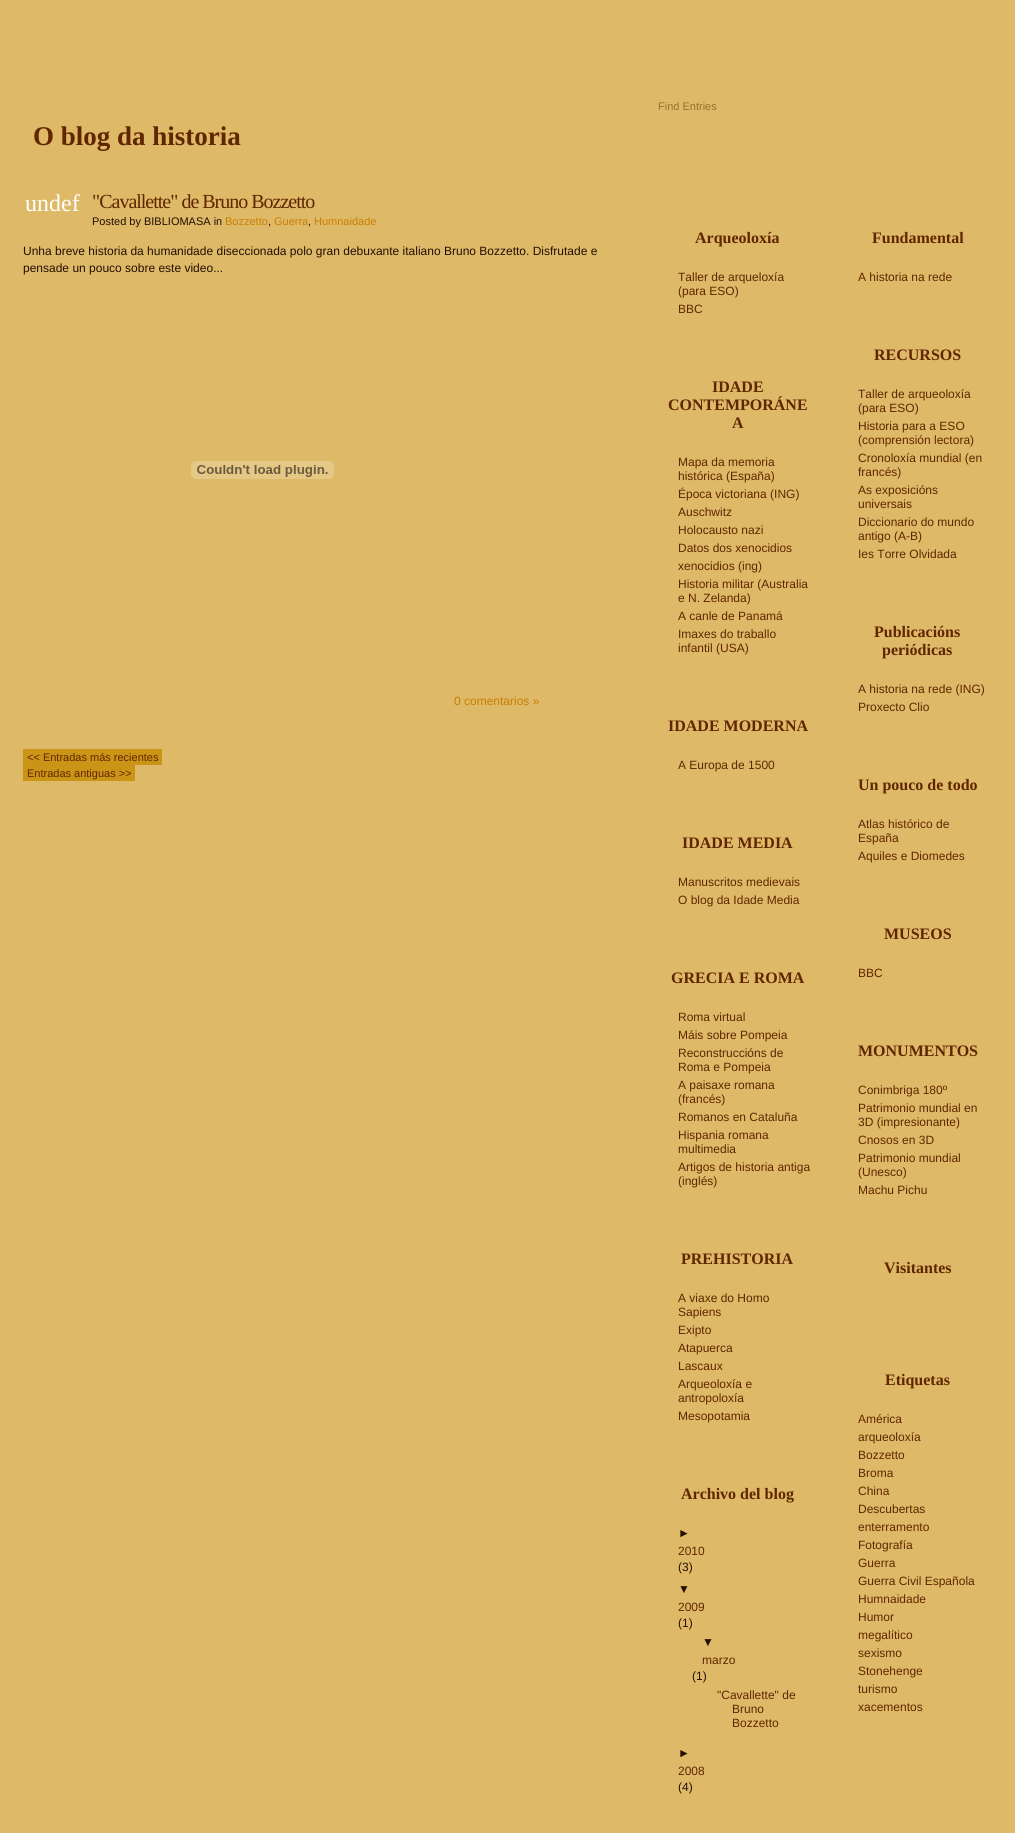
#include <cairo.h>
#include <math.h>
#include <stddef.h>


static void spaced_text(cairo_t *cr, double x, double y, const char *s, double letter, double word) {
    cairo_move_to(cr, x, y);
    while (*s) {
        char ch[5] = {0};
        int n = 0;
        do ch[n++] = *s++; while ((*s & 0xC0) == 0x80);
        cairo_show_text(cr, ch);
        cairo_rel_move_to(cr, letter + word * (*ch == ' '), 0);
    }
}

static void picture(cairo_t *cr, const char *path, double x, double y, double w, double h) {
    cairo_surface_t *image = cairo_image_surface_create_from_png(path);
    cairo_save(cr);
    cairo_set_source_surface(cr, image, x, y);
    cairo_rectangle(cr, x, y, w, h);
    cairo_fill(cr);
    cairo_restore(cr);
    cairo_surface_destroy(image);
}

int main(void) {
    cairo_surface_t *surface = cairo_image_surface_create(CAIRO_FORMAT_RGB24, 1015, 1833);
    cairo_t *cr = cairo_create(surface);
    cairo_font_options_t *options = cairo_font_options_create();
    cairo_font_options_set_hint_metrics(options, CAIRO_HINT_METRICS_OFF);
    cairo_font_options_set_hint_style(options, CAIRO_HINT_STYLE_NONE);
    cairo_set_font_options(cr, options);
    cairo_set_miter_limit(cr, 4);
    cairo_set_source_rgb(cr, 0.871, 0.725, 0.408);
    cairo_paint(cr);
    cairo_select_font_face(cr, "Liberation Sans", CAIRO_FONT_SLANT_NORMAL, CAIRO_FONT_WEIGHT_NORMAL);
    cairo_set_font_size(cr, 11);
    cairo_set_source_rgb(cr, 0.592, 0.443, 0.173);
    cairo_move_to(cr, 658, 110);
    cairo_show_text(cr, "Find Entries");
    cairo_select_font_face(cr, "Liberation Serif", CAIRO_FONT_SLANT_NORMAL, CAIRO_FONT_WEIGHT_BOLD);
    cairo_set_font_size(cr, 27);
    cairo_set_source_rgb(cr, 0.376, 0.149, 0);
    cairo_move_to(cr, 33, 145);
    cairo_show_text(cr, "O blog da historia");
    cairo_select_font_face(cr, "Liberation Serif", CAIRO_FONT_SLANT_NORMAL, CAIRO_FONT_WEIGHT_NORMAL);
    cairo_set_font_size(cr, 24);
    cairo_set_source_rgb(cr, 1, 1, 1);
    cairo_move_to(cr, 25, 211);
    cairo_show_text(cr, "undef");
    cairo_set_font_size(cr, 20);
    cairo_set_source_rgb(cr, 0.376, 0.149, 0);
    spaced_text(cr, 92, 208, "\"Cavallette\" de Bruno Bozzetto", -1, 0);
    cairo_select_font_face(cr, "Liberation Sans", CAIRO_FONT_SLANT_NORMAL, CAIRO_FONT_WEIGHT_NORMAL);
    cairo_set_font_size(cr, 11);
    cairo_set_source_rgb(cr, 0.141, 0.059, 0.008);
    cairo_move_to(cr, 92, 225);
    cairo_show_text(cr, "Posted by BIBLIOMASA in");
    cairo_set_source_rgb(cr, 0.788, 0.494, 0);
    cairo_move_to(cr, 225, 225);
    cairo_show_text(cr, "Bozzetto");
    cairo_set_source_rgb(cr, 0.141, 0.059, 0.008);
    cairo_move_to(cr, 268, 225);
    cairo_show_text(cr, ",");
    cairo_set_source_rgb(cr, 0.788, 0.494, 0);
    cairo_move_to(cr, 274, 225);
    cairo_show_text(cr, "Guerra");
    cairo_set_source_rgb(cr, 0.141, 0.059, 0.008);
    cairo_move_to(cr, 308, 225);
    cairo_show_text(cr, ",");
    cairo_set_source_rgb(cr, 0.788, 0.494, 0);
    cairo_move_to(cr, 314, 225);
    cairo_show_text(cr, "Humnaidade");
    cairo_set_font_size(cr, 12);
    cairo_set_source_rgb(cr, 0.141, 0.059, 0.008);
    cairo_move_to(cr, 23, 255);
    cairo_show_text(cr, "Unha breve historia da humanidade diseccionada polo gran debuxante italiano Bruno Bozzetto. Disfrutade e");
    cairo_move_to(cr, 23, 272);
    cairo_show_text(cr, "pensade un pouco sobre este video...");
    picture(cr, "img1.png", 191, 461, 143, 18);
    cairo_set_source_rgb(cr, 0.788, 0.494, 0);
    cairo_move_to(cr, 454, 705);
    cairo_show_text(cr, "0 comentarios »");
    cairo_set_source_rgb(cr, 0.792, 0.58, 0.09);
    cairo_rectangle(cr, 23, 749, 139, 16);
    cairo_fill(cr);
    cairo_set_font_size(cr, 11);
    cairo_set_source_rgb(cr, 0.376, 0.149, 0);
    cairo_move_to(cr, 27, 761);
    cairo_show_text(cr, "<< Entradas más recientes");
    cairo_set_source_rgb(cr, 0.792, 0.58, 0.09);
    cairo_rectangle(cr, 23, 765, 112, 16);
    cairo_fill(cr);
    cairo_set_source_rgb(cr, 0.376, 0.149, 0);
    cairo_move_to(cr, 27, 777);
    cairo_show_text(cr, "Entradas antiguas >>");
    cairo_select_font_face(cr, "Liberation Serif", CAIRO_FONT_SLANT_NORMAL, CAIRO_FONT_WEIGHT_BOLD);
    cairo_set_font_size(cr, 16);
    cairo_move_to(cr, 695, 243);
    cairo_show_text(cr, "Arqueoloxía");
    cairo_select_font_face(cr, "Liberation Sans", CAIRO_FONT_SLANT_NORMAL, CAIRO_FONT_WEIGHT_NORMAL);
    cairo_set_font_size(cr, 12);
    cairo_move_to(cr, 678, 281);
    cairo_show_text(cr, "Taller de arqueloxía");
    cairo_move_to(cr, 678, 295);
    cairo_show_text(cr, "(para ESO)");
    cairo_move_to(cr, 678, 313);
    cairo_show_text(cr, "BBC");
    cairo_select_font_face(cr, "Liberation Serif", CAIRO_FONT_SLANT_NORMAL, CAIRO_FONT_WEIGHT_BOLD);
    cairo_set_font_size(cr, 16);
    cairo_move_to(cr, 712, 392);
    cairo_show_text(cr, "IDADE");
    cairo_move_to(cr, 668, 410);
    cairo_show_text(cr, "CONTEMPORÁNE");
    cairo_move_to(cr, 732, 428);
    cairo_show_text(cr, "A");
    cairo_select_font_face(cr, "Liberation Sans", CAIRO_FONT_SLANT_NORMAL, CAIRO_FONT_WEIGHT_NORMAL);
    cairo_set_font_size(cr, 12);
    cairo_move_to(cr, 678, 466);
    cairo_show_text(cr, "Mapa da memoria");
    cairo_move_to(cr, 678, 480);
    cairo_show_text(cr, "histórica (España)");
    cairo_move_to(cr, 678, 498);
    cairo_show_text(cr, "Época victoriana (ING)");
    cairo_move_to(cr, 678, 516);
    cairo_show_text(cr, "Auschwitz");
    cairo_move_to(cr, 678, 534);
    cairo_show_text(cr, "Holocausto nazi");
    cairo_move_to(cr, 678, 552);
    cairo_show_text(cr, "Datos dos xenocidios");
    cairo_move_to(cr, 678, 570);
    cairo_show_text(cr, "xenocidios (ing)");
    cairo_move_to(cr, 678, 588);
    cairo_show_text(cr, "Historia militar (Australia");
    cairo_move_to(cr, 678, 602);
    cairo_show_text(cr, "e N. Zelanda)");
    cairo_move_to(cr, 678, 620);
    cairo_show_text(cr, "A canle de Panamá");
    cairo_move_to(cr, 678, 638);
    cairo_show_text(cr, "Imaxes do traballo");
    cairo_move_to(cr, 678, 652);
    cairo_show_text(cr, "infantil (USA)");
    cairo_select_font_face(cr, "Liberation Serif", CAIRO_FONT_SLANT_NORMAL, CAIRO_FONT_WEIGHT_BOLD);
    cairo_set_font_size(cr, 16);
    cairo_move_to(cr, 668, 731);
    cairo_show_text(cr, "IDADE MODERNA");
    cairo_select_font_face(cr, "Liberation Sans", CAIRO_FONT_SLANT_NORMAL, CAIRO_FONT_WEIGHT_NORMAL);
    cairo_set_font_size(cr, 12);
    cairo_move_to(cr, 678, 769);
    cairo_show_text(cr, "A Europa de 1500");
    cairo_select_font_face(cr, "Liberation Serif", CAIRO_FONT_SLANT_NORMAL, CAIRO_FONT_WEIGHT_BOLD);
    cairo_set_font_size(cr, 16);
    cairo_move_to(cr, 682, 848);
    cairo_show_text(cr, "IDADE MEDIA");
    cairo_select_font_face(cr, "Liberation Sans", CAIRO_FONT_SLANT_NORMAL, CAIRO_FONT_WEIGHT_NORMAL);
    cairo_set_font_size(cr, 12);
    cairo_move_to(cr, 678, 886);
    cairo_show_text(cr, "Manuscritos medievais");
    cairo_move_to(cr, 678, 904);
    cairo_show_text(cr, "O blog da Idade Media");
    cairo_select_font_face(cr, "Liberation Serif", CAIRO_FONT_SLANT_NORMAL, CAIRO_FONT_WEIGHT_BOLD);
    cairo_set_font_size(cr, 16);
    cairo_move_to(cr, 671, 983);
    cairo_show_text(cr, "GRECIA E ROMA");
    cairo_select_font_face(cr, "Liberation Sans", CAIRO_FONT_SLANT_NORMAL, CAIRO_FONT_WEIGHT_NORMAL);
    cairo_set_font_size(cr, 12);
    cairo_move_to(cr, 678, 1021);
    cairo_show_text(cr, "Roma virtual");
    cairo_move_to(cr, 678, 1039);
    cairo_show_text(cr, "Máis sobre Pompeia");
    cairo_move_to(cr, 678, 1057);
    cairo_show_text(cr, "Reconstruccións de");
    cairo_move_to(cr, 678, 1071);
    cairo_show_text(cr, "Roma e Pompeia");
    cairo_move_to(cr, 678, 1089);
    cairo_show_text(cr, "A paisaxe romana");
    cairo_move_to(cr, 678, 1103);
    cairo_show_text(cr, "(francés)");
    cairo_move_to(cr, 678, 1121);
    cairo_show_text(cr, "Romanos en Cataluña");
    cairo_move_to(cr, 678, 1139);
    cairo_show_text(cr, "Hispania romana");
    cairo_move_to(cr, 678, 1153);
    cairo_show_text(cr, "multimedia");
    cairo_move_to(cr, 678, 1171);
    cairo_show_text(cr, "Artigos de historia antiga");
    cairo_move_to(cr, 678, 1185);
    cairo_show_text(cr, "(inglés)");
    cairo_select_font_face(cr, "Liberation Serif", CAIRO_FONT_SLANT_NORMAL, CAIRO_FONT_WEIGHT_BOLD);
    cairo_set_font_size(cr, 16);
    cairo_move_to(cr, 681, 1264);
    cairo_show_text(cr, "PREHISTORIA");
    cairo_select_font_face(cr, "Liberation Sans", CAIRO_FONT_SLANT_NORMAL, CAIRO_FONT_WEIGHT_NORMAL);
    cairo_set_font_size(cr, 12);
    cairo_move_to(cr, 678, 1302);
    cairo_show_text(cr, "A viaxe do Homo");
    cairo_move_to(cr, 678, 1316);
    cairo_show_text(cr, "Sapiens");
    cairo_move_to(cr, 678, 1334);
    cairo_show_text(cr, "Exipto");
    cairo_move_to(cr, 678, 1352);
    cairo_show_text(cr, "Atapuerca");
    cairo_move_to(cr, 678, 1370);
    cairo_show_text(cr, "Lascaux");
    cairo_move_to(cr, 678, 1388);
    cairo_show_text(cr, "Arqueoloxía e");
    cairo_move_to(cr, 678, 1402);
    cairo_show_text(cr, "antropoloxía");
    cairo_move_to(cr, 678, 1420);
    cairo_show_text(cr, "Mesopotamia");
    cairo_select_font_face(cr, "Liberation Serif", CAIRO_FONT_SLANT_NORMAL, CAIRO_FONT_WEIGHT_BOLD);
    cairo_set_font_size(cr, 16);
    cairo_move_to(cr, 681, 1499);
    cairo_show_text(cr, "Archivo del blog");
    cairo_select_font_face(cr, "Liberation Sans", CAIRO_FONT_SLANT_NORMAL, CAIRO_FONT_WEIGHT_NORMAL);
    cairo_set_font_size(cr, 12);
    cairo_set_source_rgb(cr, 0.141, 0.059, 0.008);
    cairo_move_to(cr, 678, 1537);
    cairo_show_text(cr, "►");
    cairo_set_source_rgb(cr, 0.376, 0.149, 0);
    cairo_move_to(cr, 678, 1555);
    cairo_show_text(cr, "2010");
    cairo_set_source_rgb(cr, 0.141, 0.059, 0.008);
    cairo_move_to(cr, 678, 1571);
    cairo_show_text(cr, "(3)");
    cairo_move_to(cr, 678, 1593);
    cairo_show_text(cr, "▼");
    cairo_set_source_rgb(cr, 0.376, 0.149, 0);
    cairo_move_to(cr, 678, 1611);
    cairo_show_text(cr, "2009");
    cairo_set_source_rgb(cr, 0.141, 0.059, 0.008);
    cairo_move_to(cr, 678, 1627);
    cairo_show_text(cr, "(1)");
    cairo_move_to(cr, 702, 1646);
    cairo_show_text(cr, "▼");
    cairo_set_source_rgb(cr, 0.376, 0.149, 0);
    cairo_move_to(cr, 702, 1664);
    cairo_show_text(cr, "marzo");
    cairo_set_source_rgb(cr, 0.141, 0.059, 0.008);
    cairo_move_to(cr, 692, 1680);
    cairo_show_text(cr, "(1)");
    cairo_set_source_rgb(cr, 0.376, 0.149, 0);
    cairo_move_to(cr, 717, 1699);
    cairo_show_text(cr, "\"Cavallette\" de");
    cairo_move_to(cr, 732, 1713);
    cairo_show_text(cr, "Bruno");
    cairo_move_to(cr, 732, 1727);
    cairo_show_text(cr, "Bozzetto");
    cairo_set_source_rgb(cr, 0.141, 0.059, 0.008);
    cairo_move_to(cr, 678, 1757);
    cairo_show_text(cr, "►");
    cairo_set_source_rgb(cr, 0.376, 0.149, 0);
    cairo_move_to(cr, 678, 1775);
    cairo_show_text(cr, "2008");
    cairo_set_source_rgb(cr, 0.141, 0.059, 0.008);
    cairo_move_to(cr, 678, 1791);
    cairo_show_text(cr, "(4)");
    cairo_select_font_face(cr, "Liberation Serif", CAIRO_FONT_SLANT_NORMAL, CAIRO_FONT_WEIGHT_BOLD);
    cairo_set_font_size(cr, 16);
    cairo_set_source_rgb(cr, 0.376, 0.149, 0);
    cairo_move_to(cr, 872, 243);
    cairo_show_text(cr, "Fundamental");
    cairo_select_font_face(cr, "Liberation Sans", CAIRO_FONT_SLANT_NORMAL, CAIRO_FONT_WEIGHT_NORMAL);
    cairo_set_font_size(cr, 12);
    cairo_move_to(cr, 858, 281);
    cairo_show_text(cr, "A historia na rede");
    cairo_select_font_face(cr, "Liberation Serif", CAIRO_FONT_SLANT_NORMAL, CAIRO_FONT_WEIGHT_BOLD);
    cairo_set_font_size(cr, 16);
    cairo_move_to(cr, 874, 360);
    cairo_show_text(cr, "RECURSOS");
    cairo_select_font_face(cr, "Liberation Sans", CAIRO_FONT_SLANT_NORMAL, CAIRO_FONT_WEIGHT_NORMAL);
    cairo_set_font_size(cr, 12);
    cairo_move_to(cr, 858, 398);
    cairo_show_text(cr, "Taller de arqueoloxía");
    cairo_move_to(cr, 858, 412);
    cairo_show_text(cr, "(para ESO)");
    cairo_move_to(cr, 858, 430);
    cairo_show_text(cr, "Historia para a ESO");
    cairo_move_to(cr, 858, 444);
    cairo_show_text(cr, "(comprensión lectora)");
    cairo_move_to(cr, 858, 462);
    cairo_show_text(cr, "Cronoloxía mundial (en");
    cairo_move_to(cr, 858, 476);
    cairo_show_text(cr, "francés)");
    cairo_move_to(cr, 858, 494);
    cairo_show_text(cr, "As exposicións");
    cairo_move_to(cr, 858, 508);
    cairo_show_text(cr, "universais");
    cairo_move_to(cr, 858, 526);
    cairo_show_text(cr, "Diccionario do mundo");
    cairo_move_to(cr, 858, 540);
    cairo_show_text(cr, "antigo (A-B)");
    cairo_move_to(cr, 858, 558);
    cairo_show_text(cr, "Ies Torre Olvidada");
    cairo_select_font_face(cr, "Liberation Serif", CAIRO_FONT_SLANT_NORMAL, CAIRO_FONT_WEIGHT_BOLD);
    cairo_set_font_size(cr, 16);
    cairo_move_to(cr, 874, 637);
    cairo_show_text(cr, "Publicacións");
    cairo_move_to(cr, 882, 655);
    cairo_show_text(cr, "periódicas");
    cairo_select_font_face(cr, "Liberation Sans", CAIRO_FONT_SLANT_NORMAL, CAIRO_FONT_WEIGHT_NORMAL);
    cairo_set_font_size(cr, 12);
    cairo_move_to(cr, 858, 693);
    cairo_show_text(cr, "A historia na rede (ING)");
    cairo_move_to(cr, 858, 711);
    cairo_show_text(cr, "Proxecto Clio");
    cairo_select_font_face(cr, "Liberation Serif", CAIRO_FONT_SLANT_NORMAL, CAIRO_FONT_WEIGHT_BOLD);
    cairo_set_font_size(cr, 16);
    cairo_move_to(cr, 858, 790);
    cairo_show_text(cr, "Un pouco de todo");
    cairo_select_font_face(cr, "Liberation Sans", CAIRO_FONT_SLANT_NORMAL, CAIRO_FONT_WEIGHT_NORMAL);
    cairo_set_font_size(cr, 12);
    cairo_move_to(cr, 858, 828);
    cairo_show_text(cr, "Atlas histórico de");
    cairo_move_to(cr, 858, 842);
    cairo_show_text(cr, "España");
    cairo_move_to(cr, 858, 860);
    cairo_show_text(cr, "Aquiles e Diomedes");
    cairo_select_font_face(cr, "Liberation Serif", CAIRO_FONT_SLANT_NORMAL, CAIRO_FONT_WEIGHT_BOLD);
    cairo_set_font_size(cr, 16);
    cairo_move_to(cr, 884, 939);
    cairo_show_text(cr, "MUSEOS");
    cairo_select_font_face(cr, "Liberation Sans", CAIRO_FONT_SLANT_NORMAL, CAIRO_FONT_WEIGHT_NORMAL);
    cairo_set_font_size(cr, 12);
    cairo_move_to(cr, 858, 977);
    cairo_show_text(cr, "BBC");
    cairo_select_font_face(cr, "Liberation Serif", CAIRO_FONT_SLANT_NORMAL, CAIRO_FONT_WEIGHT_BOLD);
    cairo_set_font_size(cr, 16);
    cairo_move_to(cr, 858, 1056);
    cairo_show_text(cr, "MONUMENTOS");
    cairo_select_font_face(cr, "Liberation Sans", CAIRO_FONT_SLANT_NORMAL, CAIRO_FONT_WEIGHT_NORMAL);
    cairo_set_font_size(cr, 12);
    cairo_move_to(cr, 858, 1094);
    cairo_show_text(cr, "Conimbriga 180º");
    cairo_move_to(cr, 858, 1112);
    cairo_show_text(cr, "Patrimonio mundial en");
    cairo_move_to(cr, 858, 1126);
    cairo_show_text(cr, "3D (impresionante)");
    cairo_move_to(cr, 858, 1144);
    cairo_show_text(cr, "Cnosos en 3D");
    cairo_move_to(cr, 858, 1162);
    cairo_show_text(cr, "Patrimonio mundial");
    cairo_move_to(cr, 858, 1176);
    cairo_show_text(cr, "(Unesco)");
    cairo_move_to(cr, 858, 1194);
    cairo_show_text(cr, "Machu Pichu");
    cairo_select_font_face(cr, "Liberation Serif", CAIRO_FONT_SLANT_NORMAL, CAIRO_FONT_WEIGHT_BOLD);
    cairo_set_font_size(cr, 16);
    cairo_move_to(cr, 884, 1273);
    cairo_show_text(cr, "Visitantes");
    cairo_move_to(cr, 885, 1385);
    cairo_show_text(cr, "Etiquetas");
    cairo_select_font_face(cr, "Liberation Sans", CAIRO_FONT_SLANT_NORMAL, CAIRO_FONT_WEIGHT_NORMAL);
    cairo_set_font_size(cr, 12);
    cairo_move_to(cr, 858, 1423);
    cairo_show_text(cr, "América");
    cairo_move_to(cr, 858, 1441);
    cairo_show_text(cr, "arqueoloxía");
    cairo_move_to(cr, 858, 1459);
    cairo_show_text(cr, "Bozzetto");
    cairo_move_to(cr, 858, 1477);
    cairo_show_text(cr, "Broma");
    cairo_move_to(cr, 858, 1495);
    cairo_show_text(cr, "China");
    cairo_move_to(cr, 858, 1513);
    cairo_show_text(cr, "Descubertas");
    cairo_move_to(cr, 858, 1531);
    cairo_show_text(cr, "enterramento");
    cairo_move_to(cr, 858, 1549);
    cairo_show_text(cr, "Fotografía");
    cairo_move_to(cr, 858, 1567);
    cairo_show_text(cr, "Guerra");
    cairo_move_to(cr, 858, 1585);
    cairo_show_text(cr, "Guerra Civil Española");
    cairo_move_to(cr, 858, 1603);
    cairo_show_text(cr, "Humnaidade");
    cairo_move_to(cr, 858, 1621);
    cairo_show_text(cr, "Humor");
    cairo_move_to(cr, 858, 1639);
    cairo_show_text(cr, "megalítico");
    cairo_move_to(cr, 858, 1657);
    cairo_show_text(cr, "sexismo");
    cairo_move_to(cr, 858, 1675);
    cairo_show_text(cr, "Stonehenge");
    cairo_move_to(cr, 858, 1693);
    cairo_show_text(cr, "turismo");
    cairo_move_to(cr, 858, 1711);
    cairo_show_text(cr, "xacementos");
    cairo_surface_write_to_png(surface, "page.png");
    cairo_font_options_destroy(options);
    cairo_destroy(cr);
    cairo_surface_destroy(surface);
    return 0;
}
